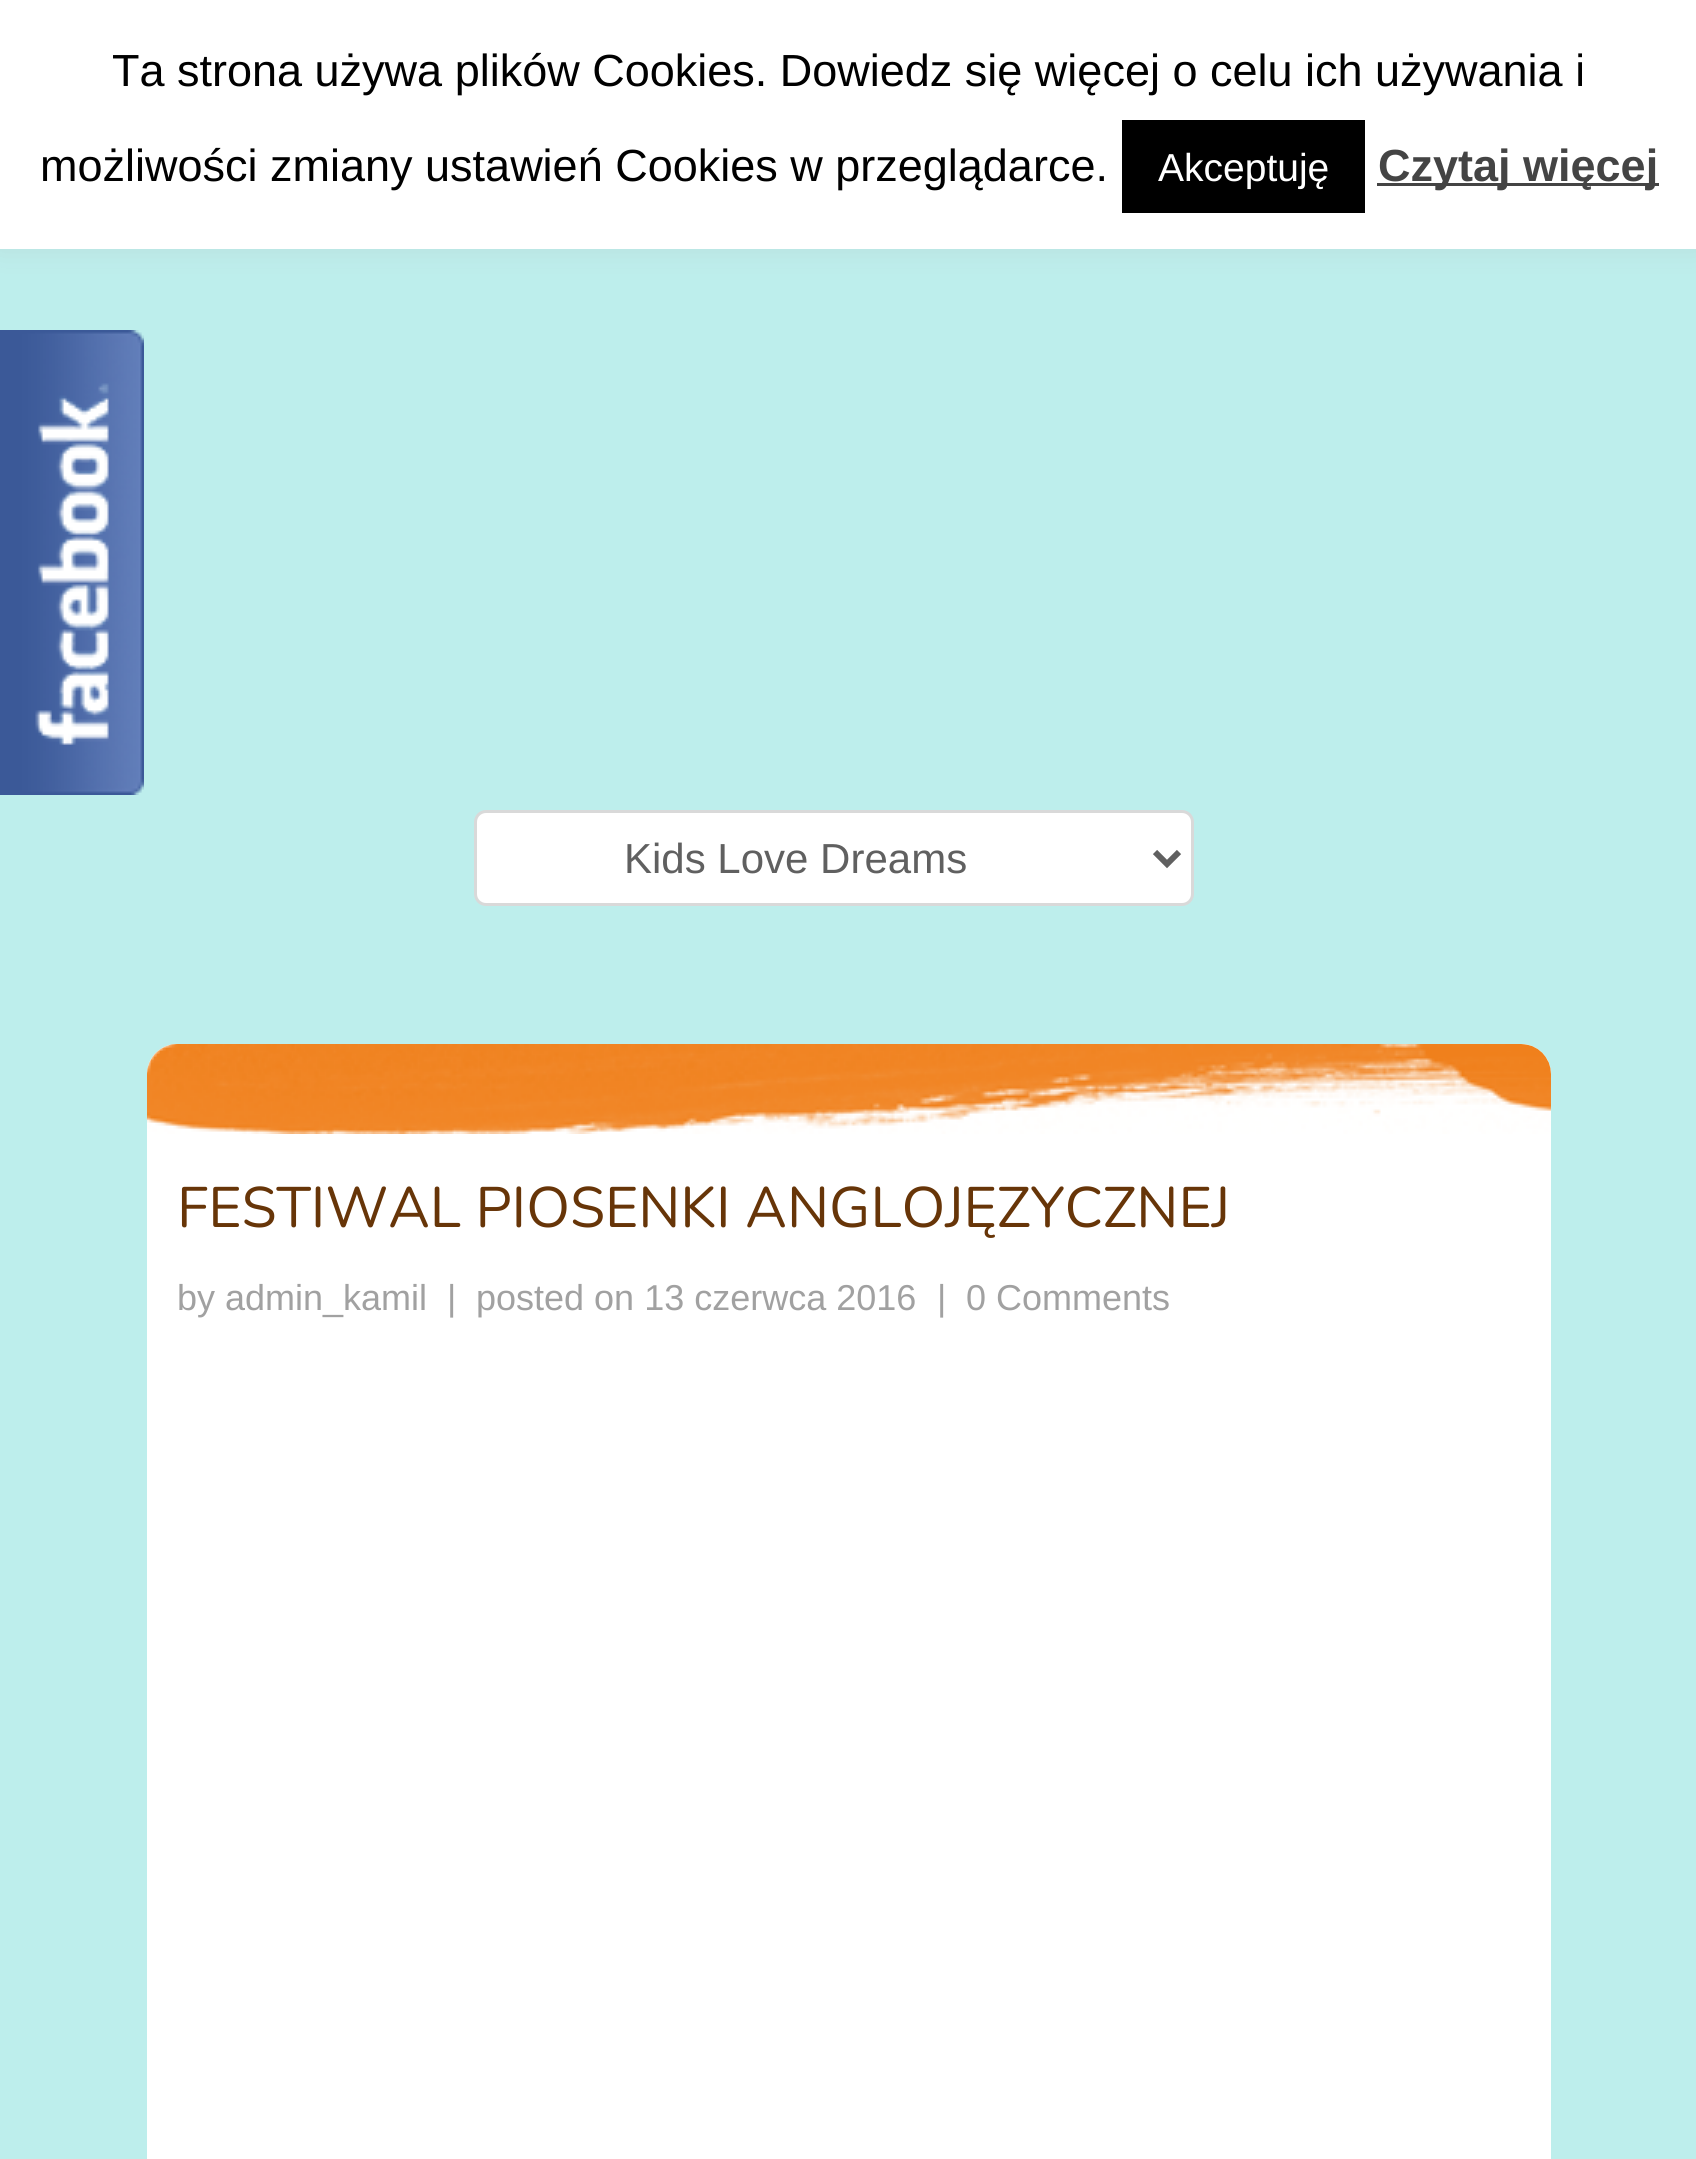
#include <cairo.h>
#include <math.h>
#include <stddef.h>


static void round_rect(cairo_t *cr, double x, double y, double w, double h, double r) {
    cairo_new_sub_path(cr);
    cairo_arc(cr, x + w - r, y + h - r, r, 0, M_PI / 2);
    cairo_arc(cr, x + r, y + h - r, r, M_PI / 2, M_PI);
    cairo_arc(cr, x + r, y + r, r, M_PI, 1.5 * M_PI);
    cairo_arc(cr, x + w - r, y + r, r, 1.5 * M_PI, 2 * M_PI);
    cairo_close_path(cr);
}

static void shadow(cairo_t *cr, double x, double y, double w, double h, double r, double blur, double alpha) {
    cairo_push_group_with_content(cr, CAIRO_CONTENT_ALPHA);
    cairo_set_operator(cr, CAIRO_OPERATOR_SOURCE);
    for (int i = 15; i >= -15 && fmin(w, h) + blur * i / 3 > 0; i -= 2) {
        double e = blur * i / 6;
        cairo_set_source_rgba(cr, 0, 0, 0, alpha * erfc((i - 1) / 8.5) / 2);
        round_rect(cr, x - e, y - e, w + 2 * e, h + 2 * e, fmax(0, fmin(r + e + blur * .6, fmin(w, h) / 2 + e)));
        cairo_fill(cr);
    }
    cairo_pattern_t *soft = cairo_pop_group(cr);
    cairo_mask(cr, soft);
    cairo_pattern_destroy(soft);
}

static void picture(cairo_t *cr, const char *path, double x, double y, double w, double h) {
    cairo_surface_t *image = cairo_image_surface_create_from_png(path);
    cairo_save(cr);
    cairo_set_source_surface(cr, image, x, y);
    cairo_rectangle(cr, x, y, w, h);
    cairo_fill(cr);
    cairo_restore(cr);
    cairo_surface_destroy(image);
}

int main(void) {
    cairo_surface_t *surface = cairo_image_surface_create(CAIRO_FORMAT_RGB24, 1696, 2159);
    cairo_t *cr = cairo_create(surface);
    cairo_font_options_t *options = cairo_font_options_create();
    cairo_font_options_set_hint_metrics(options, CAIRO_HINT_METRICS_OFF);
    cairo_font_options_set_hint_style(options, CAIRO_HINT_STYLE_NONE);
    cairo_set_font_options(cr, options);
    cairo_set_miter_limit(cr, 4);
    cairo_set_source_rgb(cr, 0.741, 0.933, 0.922);
    cairo_paint(cr);
    cairo_set_source_rgb(cr, 0.675, 0.671, 0.671);
    shadow(cr, 0, -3, 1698, 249, 0, 15, 0.3);
    cairo_set_source_rgb(cr, 1, 1, 1);
    cairo_rectangle(cr, 0, 0, 1696, 249);
    cairo_fill(cr);
    cairo_select_font_face(cr, "Liberation Sans", CAIRO_FONT_SLANT_NORMAL, CAIRO_FONT_WEIGHT_NORMAL);
    cairo_set_font_size(cr, 45);
    cairo_set_source_rgb(cr, 0, 0, 0);
    cairo_move_to(cr, 112, 86);
    cairo_show_text(cr, "Ta strona używa plików Cookies. Dowiedz się więcej o celu ich używania i");
    cairo_move_to(cr, 40, 181);
    cairo_show_text(cr, "możliwości zmiany ustawień Cookies w przeglądarce.");
    cairo_rectangle(cr, 1122, 120, 243, 93);
    cairo_fill(cr);
    cairo_set_font_size(cr, 39);
    cairo_set_source_rgb(cr, 1, 1, 1);
    cairo_move_to(cr, 1158, 181);
    cairo_show_text(cr, "Akceptuję");
    cairo_set_source_rgb(cr, 0.267, 0.267, 0.267);
    cairo_rectangle(cr, 1377, 183, 282, 3);
    cairo_fill(cr);
    cairo_select_font_face(cr, "Liberation Sans", CAIRO_FONT_SLANT_NORMAL, CAIRO_FONT_WEIGHT_BOLD);
    cairo_set_font_size(cr, 45);
    cairo_move_to(cr, 1378, 181);
    cairo_show_text(cr, "Czytaj więcej");
    picture(cr, "img1.png", 0, 330, 144, 465);
    cairo_set_source_rgb(cr, 1, 1, 1);
    round_rect(cr, 475.5, 811.5, 717, 93, 10.5);
    cairo_fill_preserve(cr);
    cairo_set_source_rgb(cr, 0.851, 0.851, 0.851);
    cairo_set_line_width(cr, 3);
    cairo_stroke(cr);
    cairo_new_path(cr);
    cairo_move_to(cr, 1155, 852);
    cairo_line_to(cr, 1167, 864);
    cairo_line_to(cr, 1179, 852);
    cairo_set_source_rgb(cr, 0.376, 0.376, 0.376);
    cairo_set_line_width(cr, 6);
    cairo_stroke(cr);
    cairo_select_font_face(cr, "Liberation Sans", CAIRO_FONT_SLANT_NORMAL, CAIRO_FONT_WEIGHT_NORMAL);
    cairo_set_font_size(cr, 42);
    cairo_move_to(cr, 624, 873);
    cairo_show_text(cr, "Kids Love Dreams");
    cairo_set_source_rgb(cr, 1, 1, 1);
    round_rect(cr, 147, 1044, 1404, 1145, 30);
    cairo_fill(cr);
    picture(cr, "img2.png", 147, 1044, 1404, 90);
    cairo_select_font_face(cr, "Nunito", CAIRO_FONT_SLANT_NORMAL, CAIRO_FONT_WEIGHT_NORMAL);
    cairo_set_font_size(cr, 57);
    cairo_set_source_rgb(cr, 0.404, 0.208, 0.035);
    cairo_move_to(cr, 177, 1227);
    cairo_show_text(cr, "FESTIWAL PIOSENKI ANGLOJĘZYCZNEJ");
    cairo_select_font_face(cr, "Liberation Sans", CAIRO_FONT_SLANT_NORMAL, CAIRO_FONT_WEIGHT_NORMAL);
    cairo_set_font_size(cr, 36);
    cairo_set_source_rgb(cr, 0.631, 0.631, 0.631);
    cairo_move_to(cr, 177, 1310);
    cairo_show_text(cr, "by admin_kamil");
    cairo_move_to(cr, 447, 1310);
    cairo_show_text(cr, "|");
    cairo_move_to(cr, 476, 1310);
    cairo_show_text(cr, "posted on 13 czerwca 2016");
    cairo_move_to(cr, 937, 1310);
    cairo_show_text(cr, "|");
    cairo_move_to(cr, 966, 1310);
    cairo_show_text(cr, "0 Comments");
    cairo_surface_write_to_png(surface, "page.png");
    cairo_font_options_destroy(options);
    cairo_destroy(cr);
    cairo_surface_destroy(surface);
    return 0;
}
